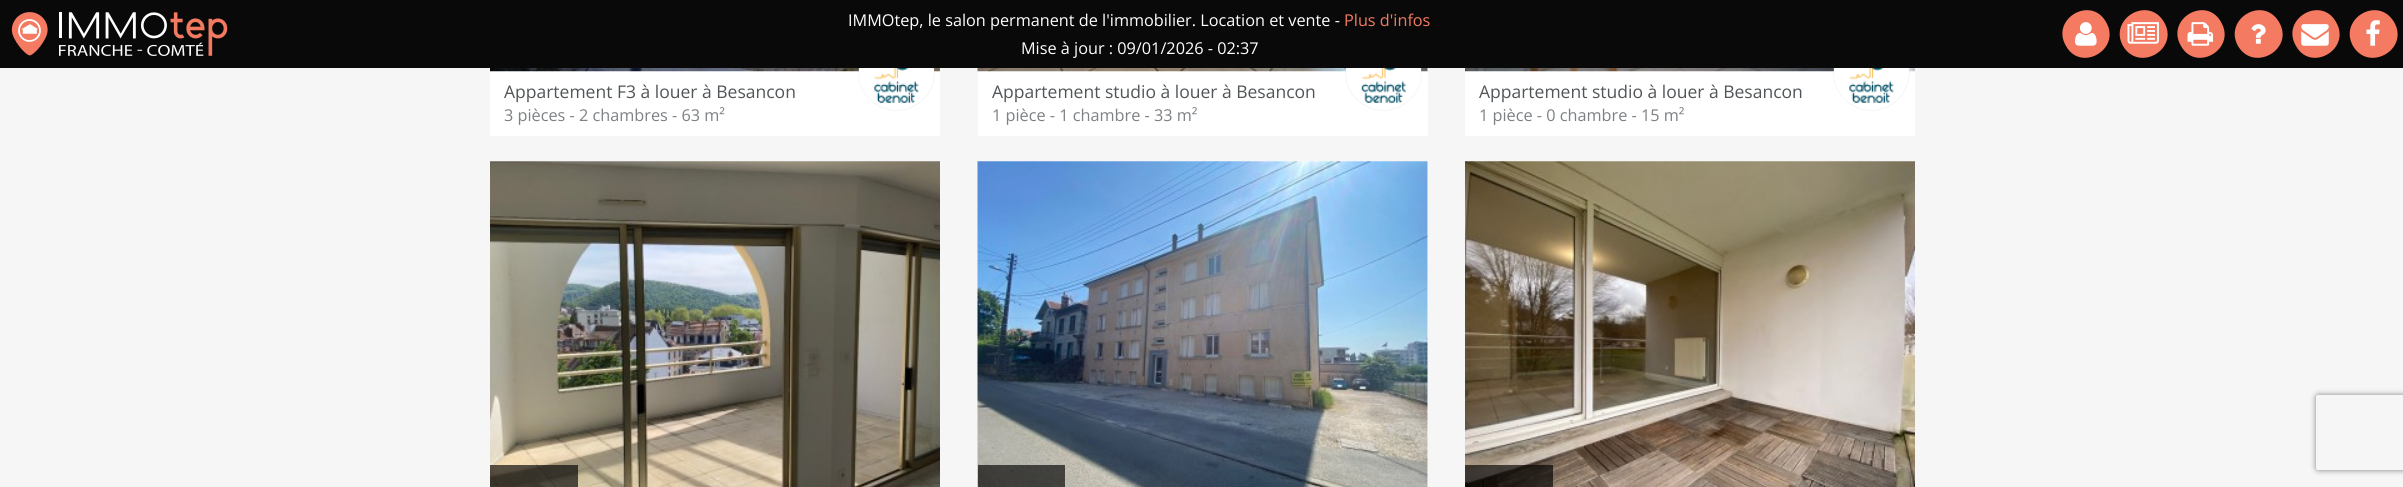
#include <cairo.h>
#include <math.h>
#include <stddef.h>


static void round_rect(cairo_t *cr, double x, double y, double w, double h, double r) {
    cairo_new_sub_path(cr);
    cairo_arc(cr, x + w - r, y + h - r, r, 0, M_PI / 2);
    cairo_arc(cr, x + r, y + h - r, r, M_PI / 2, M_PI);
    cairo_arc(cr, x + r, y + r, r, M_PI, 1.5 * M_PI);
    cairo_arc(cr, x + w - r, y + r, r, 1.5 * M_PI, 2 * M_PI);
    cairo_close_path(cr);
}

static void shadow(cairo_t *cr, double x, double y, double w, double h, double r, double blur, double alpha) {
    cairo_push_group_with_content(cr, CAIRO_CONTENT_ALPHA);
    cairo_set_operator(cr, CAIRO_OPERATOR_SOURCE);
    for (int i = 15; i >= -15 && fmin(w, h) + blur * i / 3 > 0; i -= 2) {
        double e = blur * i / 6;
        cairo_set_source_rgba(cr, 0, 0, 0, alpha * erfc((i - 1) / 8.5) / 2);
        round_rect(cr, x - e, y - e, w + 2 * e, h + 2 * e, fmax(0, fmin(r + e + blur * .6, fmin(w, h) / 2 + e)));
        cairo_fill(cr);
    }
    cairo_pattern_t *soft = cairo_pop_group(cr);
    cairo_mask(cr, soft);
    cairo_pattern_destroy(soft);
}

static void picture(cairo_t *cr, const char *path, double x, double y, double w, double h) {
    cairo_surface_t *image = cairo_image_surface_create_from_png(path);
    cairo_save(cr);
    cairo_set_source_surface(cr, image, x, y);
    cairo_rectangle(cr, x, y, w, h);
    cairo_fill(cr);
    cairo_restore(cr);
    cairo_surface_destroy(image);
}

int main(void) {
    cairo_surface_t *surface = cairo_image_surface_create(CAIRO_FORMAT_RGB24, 2403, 487);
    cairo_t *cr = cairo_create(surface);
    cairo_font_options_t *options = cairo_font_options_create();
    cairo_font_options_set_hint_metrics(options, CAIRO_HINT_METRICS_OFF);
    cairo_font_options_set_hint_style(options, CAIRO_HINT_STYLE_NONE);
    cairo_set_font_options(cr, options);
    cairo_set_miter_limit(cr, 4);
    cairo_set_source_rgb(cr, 0.961, 0.961, 0.961);
    cairo_paint(cr);
    cairo_set_source_rgb(cr, 1, 1, 1);
    cairo_rectangle(cr, 490, 71, 450, 65);
    cairo_fill(cr);
    picture(cr, "img9.png", 490, 68, 450, 4);
    cairo_set_source_rgb(cr, 0.812, 0.812, 0.812);
    shadow(cr, 859, 35, 75, 75, 37.5, 0.5, 1);
    cairo_set_source_rgb(cr, 1, 1, 1);
    cairo_arc(cr, 896.5, 72.5, 37.5, 0, 2 * M_PI);
    cairo_fill(cr);
    picture(cr, "img8.png", 859, 68, 75, 35);
    cairo_arc(cr, 896.5, 72.5, 36, 0, 2 * M_PI);
    cairo_set_line_width(cr, 3);
    cairo_stroke(cr);
    cairo_rectangle(cr, 1427, 68, 1, 3);
    cairo_fill(cr);
    cairo_rectangle(cr, 978, 71, 450, 65);
    cairo_fill(cr);
    picture(cr, "img11.png", 977, 68, 451, 4);
    cairo_set_source_rgb(cr, 0.812, 0.812, 0.812);
    shadow(cr, 1346, 35, 75, 75, 37.5, 0.5, 1);
    cairo_set_source_rgb(cr, 1, 1, 1);
    cairo_arc(cr, 1383.5, 72.5, 37.5, 0, 2 * M_PI);
    cairo_fill(cr);
    picture(cr, "img10.png", 1346, 68, 75, 35);
    cairo_arc(cr, 1383.5, 72.5, 36, 0, 2 * M_PI);
    cairo_stroke(cr);
    cairo_rectangle(cr, 1465, 71, 450, 65);
    cairo_fill(cr);
    picture(cr, "img13.png", 1465, 68, 450, 4);
    cairo_set_source_rgb(cr, 0.812, 0.812, 0.812);
    shadow(cr, 1834, 35, 75, 75, 37.5, 0.5, 1);
    cairo_set_source_rgb(cr, 1, 1, 1);
    cairo_arc(cr, 1871.5, 72.5, 37.5, 0, 2 * M_PI);
    cairo_fill(cr);
    picture(cr, "img12.png", 1834, 68, 69, 35);
    cairo_arc(cr, 1871.5, 72.5, 36, 0, 2 * M_PI);
    cairo_stroke(cr);
    cairo_set_source_rgb(cr, 0.039, 0.039, 0.039);
    cairo_rectangle(cr, 0, 0, 2403, 68);
    cairo_fill(cr);
    picture(cr, "img1.png", 11, 12, 217, 44);
    cairo_select_font_face(cr, "Open Sans", CAIRO_FONT_SLANT_NORMAL, CAIRO_FONT_WEIGHT_NORMAL);
    cairo_set_font_size(cr, 16.25);
    cairo_set_source_rgb(cr, 1, 1, 1);
    cairo_move_to(cr, 848, 26);
    cairo_show_text(cr, "IMMOtep, le salon permanent de l'immobilier. Location et vente -");
    cairo_set_source_rgb(cr, 0.957, 0.478, 0.38);
    cairo_move_to(cr, 1344, 26);
    cairo_show_text(cr, "Plus d'infos");
    cairo_set_source_rgb(cr, 1, 1, 1);
    cairo_move_to(cr, 1021, 54);
    cairo_show_text(cr, "Mise à jour : 09/01/2026 - 02:37");
    cairo_set_source_rgb(cr, 0.957, 0.478, 0.38);
    cairo_new_path(cr);
    cairo_move_to(cr, 2106, 22);
    cairo_curve_to(cr, 2122, 49, 2081, 73, 2066, 46);
    cairo_curve_to(cr, 2050, 19, 2091, -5, 2106, 22);
    cairo_close_path(cr);
    cairo_fill(cr);
    picture(cr, "img2.png", 2075, 22, 22, 24);
    cairo_new_path(cr);
    cairo_move_to(cr, 2164, 22);
    cairo_curve_to(cr, 2180, 49, 2139, 73, 2123, 46);
    cairo_curve_to(cr, 2108, 19, 2148, -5, 2164, 22);
    cairo_close_path(cr);
    cairo_fill(cr);
    picture(cr, "img3.png", 2127, 22, 32, 22);
    cairo_new_path(cr);
    cairo_move_to(cr, 2221, 22);
    cairo_curve_to(cr, 2237, 49, 2196, 73, 2181, 46);
    cairo_curve_to(cr, 2165, 19, 2206, -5, 2221, 22);
    cairo_close_path(cr);
    cairo_fill(cr);
    picture(cr, "img4.png", 2187, 22, 27, 24);
    cairo_new_path(cr);
    cairo_move_to(cr, 2279, 22);
    cairo_curve_to(cr, 2295, 49, 2254, 73, 2238, 46);
    cairo_curve_to(cr, 2223, 19, 2263, -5, 2279, 22);
    cairo_close_path(cr);
    cairo_fill(cr);
    picture(cr, "img5.png", 2251, 24, 15, 20);
    cairo_new_path(cr);
    cairo_move_to(cr, 2336, 22);
    cairo_curve_to(cr, 2352, 49, 2311, 73, 2296, 46);
    cairo_curve_to(cr, 2280, 19, 2321, -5, 2336, 22);
    cairo_close_path(cr);
    cairo_fill(cr);
    picture(cr, "img6.png", 2301, 24, 28, 22);
    cairo_new_path(cr);
    cairo_move_to(cr, 2394, 22);
    cairo_curve_to(cr, 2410, 49, 2369, 73, 2353, 46);
    cairo_curve_to(cr, 2338, 19, 2378, -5, 2394, 22);
    cairo_close_path(cr);
    cairo_fill(cr);
    picture(cr, "img7.png", 2366, 20, 14, 26);
    cairo_set_font_size(cr, 17.5);
    cairo_set_source_rgb(cr, 0.318, 0.333, 0.341);
    cairo_move_to(cr, 504, 98);
    cairo_show_text(cr, "Appartement F3 à louer à Besancon");
    cairo_set_font_size(cr, 16.25);
    cairo_set_source_rgb(cr, 0.486, 0.506, 0.518);
    cairo_move_to(cr, 504, 121);
    cairo_show_text(cr, "3 pièces - 2 chambres - 63 m²");
    cairo_set_font_size(cr, 17.5);
    cairo_set_source_rgb(cr, 0.318, 0.333, 0.341);
    cairo_move_to(cr, 992, 98);
    cairo_show_text(cr, "Appartement studio à louer à Besancon");
    cairo_set_font_size(cr, 16.25);
    cairo_set_source_rgb(cr, 0.486, 0.506, 0.518);
    cairo_move_to(cr, 992, 121);
    cairo_show_text(cr, "1 pièce - 1 chambre - 33 m²");
    cairo_set_font_size(cr, 17.5);
    cairo_set_source_rgb(cr, 0.318, 0.333, 0.341);
    cairo_move_to(cr, 1479, 98);
    cairo_show_text(cr, "Appartement studio à louer à Besancon");
    cairo_set_font_size(cr, 16.25);
    cairo_set_source_rgb(cr, 0.486, 0.506, 0.518);
    cairo_move_to(cr, 1479, 121);
    cairo_show_text(cr, "1 pièce - 0 chambre - 15 m²");
    picture(cr, "img14.png", 490, 161, 450, 326);
    cairo_set_source_rgba(cr, 0, 0, 0, 0.65);
    cairo_rectangle(cr, 490, 465, 88, 22);
    cairo_fill(cr);
    cairo_set_source_rgb(cr, 1, 1, 1);
    cairo_rectangle(cr, 978, 161, 450, 326);
    cairo_fill(cr);
    picture(cr, "img15.png", 977, 161, 451, 326);
    cairo_set_source_rgba(cr, 0, 0, 0, 0.65);
    cairo_rectangle(cr, 978, 465, 87, 22);
    cairo_fill(cr);
    picture(cr, "img16.png", 1465, 161, 450, 326);
    cairo_rectangle(cr, 1465, 465, 88, 22);
    cairo_fill(cr);
    cairo_save(cr);
    cairo_set_fill_rule(cr, CAIRO_FILL_RULE_EVEN_ODD);
    cairo_new_path(cr);
    cairo_move_to(cr, 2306, 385);
    cairo_line_to(cr, 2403, 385);
    cairo_line_to(cr, 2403, 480);
    cairo_line_to(cr, 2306, 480);
    cairo_close_path(cr);
    cairo_move_to(cr, 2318.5, 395);
    cairo_line_to(cr, 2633.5, 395);
    cairo_curve_to(cr, 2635, 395, 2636, 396, 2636, 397.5);
    cairo_line_to(cr, 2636, 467.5);
    cairo_curve_to(cr, 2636, 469, 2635, 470, 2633.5, 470);
    cairo_line_to(cr, 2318.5, 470);
    cairo_curve_to(cr, 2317, 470, 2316, 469, 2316, 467.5);
    cairo_line_to(cr, 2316, 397.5);
    cairo_curve_to(cr, 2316, 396, 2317, 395, 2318.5, 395);
    cairo_close_path(cr);
    cairo_clip(cr);
    cairo_set_source_rgb(cr, 0.502, 0.502, 0.502);
    shadow(cr, 2316, 395, 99, 75, 2.5, 3, 1);
    cairo_restore(cr);
    cairo_surface_write_to_png(surface, "page.png");
    cairo_font_options_destroy(options);
    cairo_destroy(cr);
    cairo_surface_destroy(surface);
    return 0;
}
